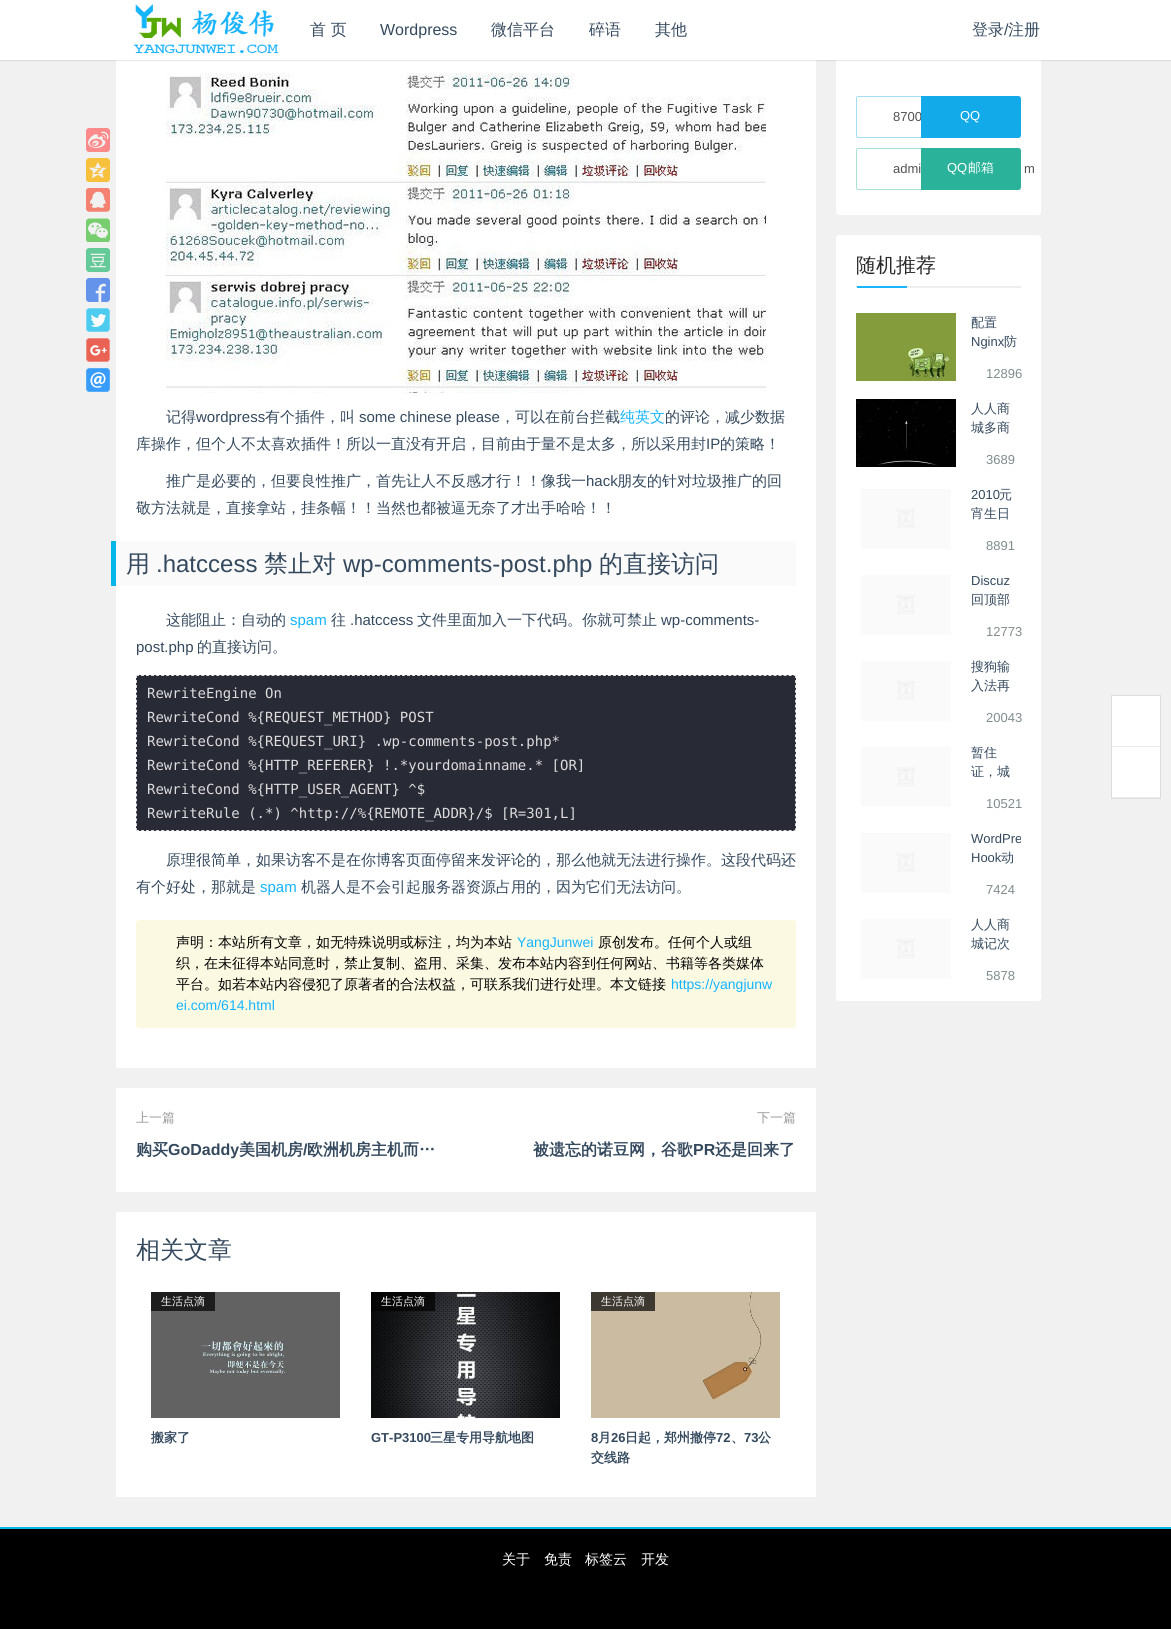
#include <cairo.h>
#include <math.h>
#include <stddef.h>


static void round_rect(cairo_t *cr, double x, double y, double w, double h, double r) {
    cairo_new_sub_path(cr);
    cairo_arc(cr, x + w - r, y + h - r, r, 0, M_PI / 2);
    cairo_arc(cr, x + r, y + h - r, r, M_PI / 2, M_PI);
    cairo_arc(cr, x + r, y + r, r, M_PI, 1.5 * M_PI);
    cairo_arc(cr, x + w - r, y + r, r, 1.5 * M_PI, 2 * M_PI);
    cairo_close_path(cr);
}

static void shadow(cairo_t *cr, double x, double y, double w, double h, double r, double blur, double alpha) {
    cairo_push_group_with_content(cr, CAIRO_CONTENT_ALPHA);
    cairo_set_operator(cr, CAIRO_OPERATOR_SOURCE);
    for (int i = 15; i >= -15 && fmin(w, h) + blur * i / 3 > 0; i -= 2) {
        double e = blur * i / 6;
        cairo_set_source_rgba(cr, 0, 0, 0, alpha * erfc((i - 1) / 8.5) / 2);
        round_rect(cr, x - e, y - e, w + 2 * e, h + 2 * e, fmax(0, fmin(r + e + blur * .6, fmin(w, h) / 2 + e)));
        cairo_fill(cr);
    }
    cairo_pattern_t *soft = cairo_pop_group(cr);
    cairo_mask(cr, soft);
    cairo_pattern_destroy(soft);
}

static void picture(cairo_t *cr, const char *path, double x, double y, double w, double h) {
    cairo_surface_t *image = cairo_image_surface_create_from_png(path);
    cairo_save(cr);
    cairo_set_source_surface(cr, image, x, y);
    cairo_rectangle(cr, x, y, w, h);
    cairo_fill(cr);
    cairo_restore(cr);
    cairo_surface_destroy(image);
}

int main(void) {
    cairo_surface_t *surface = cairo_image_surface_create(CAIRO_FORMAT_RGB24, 1171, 1629);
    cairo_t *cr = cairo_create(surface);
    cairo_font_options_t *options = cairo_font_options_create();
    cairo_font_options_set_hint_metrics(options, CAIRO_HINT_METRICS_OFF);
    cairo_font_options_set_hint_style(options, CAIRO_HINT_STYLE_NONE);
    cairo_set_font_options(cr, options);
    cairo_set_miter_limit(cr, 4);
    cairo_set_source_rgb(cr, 0.945, 0.945, 0.945);
    cairo_paint(cr);
    cairo_set_source_rgb(cr, 1, 1, 1);
    cairo_rectangle(cr, 116, 60, 700, 1008);
    cairo_fill(cr);
    round_rect(cr, 836, -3, 205, 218, 3);
    cairo_fill(cr);
    cairo_set_source_rgb(cr, 0, 0, 0);
    shadow(cr, 0, 1, 1171, 60, 0, 0.5, 0.1);
    cairo_set_source_rgb(cr, 1, 1, 1);
    cairo_rectangle(cr, 0, 0, 1171, 60);
    cairo_fill(cr);
    picture(cr, "img1.png", 133, 4, 146, 50);
    cairo_select_font_face(cr, "WenQuanYi Zen Hei Medium", CAIRO_FONT_SLANT_NORMAL, CAIRO_FONT_WEIGHT_NORMAL);
    cairo_set_font_size(cr, 16);
    cairo_set_source_rgb(cr, 0.204, 0.286, 0.369);
    cairo_move_to(cr, 310, 35);
    cairo_show_text(cr, "首 页");
    cairo_select_font_face(cr, "Liberation Sans", CAIRO_FONT_SLANT_NORMAL, CAIRO_FONT_WEIGHT_NORMAL);
    cairo_move_to(cr, 380, 35);
    cairo_show_text(cr, "Wordpress");
    cairo_select_font_face(cr, "WenQuanYi Zen Hei Medium", CAIRO_FONT_SLANT_NORMAL, CAIRO_FONT_WEIGHT_NORMAL);
    cairo_move_to(cr, 491, 35);
    cairo_show_text(cr, "微信平台");
    cairo_move_to(cr, 589, 35);
    cairo_show_text(cr, "碎语");
    cairo_move_to(cr, 655, 35);
    cairo_show_text(cr, "其他");
    cairo_move_to(cr, 972, 35);
    cairo_show_text(cr, "登录");
    cairo_select_font_face(cr, "Liberation Sans", CAIRO_FONT_SLANT_NORMAL, CAIRO_FONT_WEIGHT_NORMAL);
    cairo_move_to(cr, 1004, 35);
    cairo_show_text(cr, "/");
    cairo_select_font_face(cr, "WenQuanYi Zen Hei Medium", CAIRO_FONT_SLANT_NORMAL, CAIRO_FONT_WEIGHT_NORMAL);
    cairo_move_to(cr, 1008, 35);
    cairo_show_text(cr, "注册");
    picture(cr, "img2.png", 86, 128, 24, 24);
    picture(cr, "img3.png", 86, 158, 24, 24);
    picture(cr, "img4.png", 86, 188, 24, 24);
    picture(cr, "img5.png", 86, 218, 24, 24);
    picture(cr, "img6.png", 86, 248, 24, 24);
    picture(cr, "img7.png", 86, 278, 24, 24);
    picture(cr, "img8.png", 86, 308, 24, 24);
    picture(cr, "img9.png", 86, 338, 24, 24);
    picture(cr, "img10.png", 86, 368, 24, 24);
    picture(cr, "img11.png", 166, 73, 600, 320);
    cairo_set_font_size(cr, 15);
    cairo_move_to(cr, 166, 422);
    cairo_show_text(cr, "记得");
    cairo_select_font_face(cr, "Liberation Sans", CAIRO_FONT_SLANT_NORMAL, CAIRO_FONT_WEIGHT_NORMAL);
    cairo_move_to(cr, 196, 422);
    cairo_show_text(cr, "wordpress");
    cairo_select_font_face(cr, "WenQuanYi Zen Hei Medium", CAIRO_FONT_SLANT_NORMAL, CAIRO_FONT_WEIGHT_NORMAL);
    cairo_move_to(cr, 265, 422);
    cairo_show_text(cr, "有个插件，叫");
    cairo_select_font_face(cr, "Liberation Sans", CAIRO_FONT_SLANT_NORMAL, CAIRO_FONT_WEIGHT_NORMAL);
    cairo_move_to(cr, 359, 422);
    cairo_show_text(cr, "some chinese please");
    cairo_select_font_face(cr, "WenQuanYi Zen Hei Medium", CAIRO_FONT_SLANT_NORMAL, CAIRO_FONT_WEIGHT_NORMAL);
    cairo_move_to(cr, 500, 422);
    cairo_show_text(cr, "，可以在前台拦截");
    cairo_set_source_rgb(cr, 0.078, 0.706, 1);
    cairo_move_to(cr, 620, 422);
    cairo_show_text(cr, "纯英文");
    cairo_set_source_rgb(cr, 0.204, 0.286, 0.369);
    cairo_move_to(cr, 665, 422);
    cairo_show_text(cr, "的评论，减少数据");
    cairo_move_to(cr, 136, 449);
    cairo_show_text(cr, "库操作，但个人不太喜欢插件！所以一直没有开启，目前由于量不是太多，所以采用封");
    cairo_select_font_face(cr, "Liberation Sans", CAIRO_FONT_SLANT_NORMAL, CAIRO_FONT_WEIGHT_NORMAL);
    cairo_move_to(cr, 706, 449);
    cairo_show_text(cr, "IP");
    cairo_select_font_face(cr, "WenQuanYi Zen Hei Medium", CAIRO_FONT_SLANT_NORMAL, CAIRO_FONT_WEIGHT_NORMAL);
    cairo_move_to(cr, 720, 449);
    cairo_show_text(cr, "的策略！");
    cairo_move_to(cr, 166, 486);
    cairo_show_text(cr, "推广是必要的，但要良性推广，首先让人不反感才行！！像我一");
    cairo_select_font_face(cr, "Liberation Sans", CAIRO_FONT_SLANT_NORMAL, CAIRO_FONT_WEIGHT_NORMAL);
    cairo_move_to(cr, 586, 486);
    cairo_show_text(cr, "hack");
    cairo_select_font_face(cr, "WenQuanYi Zen Hei Medium", CAIRO_FONT_SLANT_NORMAL, CAIRO_FONT_WEIGHT_NORMAL);
    cairo_move_to(cr, 617, 486);
    cairo_show_text(cr, "朋友的针对垃圾推广的回");
    cairo_move_to(cr, 136, 513);
    cairo_show_text(cr, "敬方法就是，直接拿站，挂条幅！！当然也都被逼无奈了才出手哈哈！！");
    cairo_set_source_rgb(cr, 0.98, 0.98, 0.98);
    cairo_rectangle(cr, 116, 541, 680, 45);
    cairo_fill(cr);
    cairo_set_source_rgb(cr, 0.027, 0.714, 0.91);
    cairo_rectangle(cr, 111, 541, 5, 45);
    cairo_fill(cr);
    cairo_set_font_size(cr, 24);
    cairo_set_source_rgb(cr, 0.204, 0.286, 0.369);
    cairo_move_to(cr, 126, 572);
    cairo_show_text(cr, "用");
    cairo_select_font_face(cr, "Liberation Sans", CAIRO_FONT_SLANT_NORMAL, CAIRO_FONT_WEIGHT_NORMAL);
    cairo_move_to(cr, 156, 572);
    cairo_show_text(cr, ".hatccess");
    cairo_select_font_face(cr, "WenQuanYi Zen Hei Medium", CAIRO_FONT_SLANT_NORMAL, CAIRO_FONT_WEIGHT_NORMAL);
    cairo_move_to(cr, 264, 572);
    cairo_show_text(cr, "禁止对");
    cairo_select_font_face(cr, "Liberation Sans", CAIRO_FONT_SLANT_NORMAL, CAIRO_FONT_WEIGHT_NORMAL);
    cairo_move_to(cr, 343, 572);
    cairo_show_text(cr, "wp-comments-post.php");
    cairo_select_font_face(cr, "WenQuanYi Zen Hei Medium", CAIRO_FONT_SLANT_NORMAL, CAIRO_FONT_WEIGHT_NORMAL);
    cairo_move_to(cr, 599, 572);
    cairo_show_text(cr, "的直接访问");
    cairo_set_font_size(cr, 15);
    cairo_move_to(cr, 166, 625);
    cairo_show_text(cr, "这能阻止：自动的");
    cairo_select_font_face(cr, "Liberation Sans", CAIRO_FONT_SLANT_NORMAL, CAIRO_FONT_WEIGHT_NORMAL);
    cairo_set_source_rgb(cr, 0.078, 0.706, 1);
    cairo_move_to(cr, 290, 625);
    cairo_show_text(cr, "spam");
    cairo_select_font_face(cr, "WenQuanYi Zen Hei Medium", CAIRO_FONT_SLANT_NORMAL, CAIRO_FONT_WEIGHT_NORMAL);
    cairo_set_source_rgb(cr, 0.204, 0.286, 0.369);
    cairo_move_to(cr, 331, 625);
    cairo_show_text(cr, "往");
    cairo_select_font_face(cr, "Liberation Sans", CAIRO_FONT_SLANT_NORMAL, CAIRO_FONT_WEIGHT_NORMAL);
    cairo_move_to(cr, 350, 625);
    cairo_show_text(cr, ".hatccess");
    cairo_select_font_face(cr, "WenQuanYi Zen Hei Medium", CAIRO_FONT_SLANT_NORMAL, CAIRO_FONT_WEIGHT_NORMAL);
    cairo_move_to(cr, 417, 625);
    cairo_show_text(cr, "文件里面加入一下代码。你就可禁止");
    cairo_select_font_face(cr, "Liberation Sans", CAIRO_FONT_SLANT_NORMAL, CAIRO_FONT_WEIGHT_NORMAL);
    cairo_move_to(cr, 661, 625);
    cairo_show_text(cr, "wp-comments-");
    cairo_move_to(cr, 136, 652);
    cairo_show_text(cr, "post.php");
    cairo_select_font_face(cr, "WenQuanYi Zen Hei Medium", CAIRO_FONT_SLANT_NORMAL, CAIRO_FONT_WEIGHT_NORMAL);
    cairo_move_to(cr, 197, 652);
    cairo_show_text(cr, "的直接访问。");
    cairo_set_source_rgb(cr, 0.157, 0.165, 0.212);
    cairo_rectangle(cr, 136, 675, 660, 156);
    cairo_fill(cr);
    cairo_new_path(cr);
    cairo_move_to(cr, 136, 675.5);
    cairo_line_to(cr, 796, 675.5);
    cairo_set_source_rgb(cr, 0.867, 0.867, 0.867);
    cairo_set_line_width(cr, 1);
    cairo_set_dash(cr, (double[]){3, 2.02}, 2, 0);
    cairo_stroke(cr);
    cairo_new_path(cr);
    cairo_move_to(cr, 795.5, 675);
    cairo_line_to(cr, 795.5, 831);
    cairo_set_dash(cr, (double[]){3, 1.94}, 2, 0);
    cairo_stroke(cr);
    cairo_new_path(cr);
    cairo_move_to(cr, 136, 830.5);
    cairo_line_to(cr, 796, 830.5);
    cairo_set_dash(cr, (double[]){3, 2.02}, 2, 0);
    cairo_stroke(cr);
    cairo_new_path(cr);
    cairo_move_to(cr, 136.5, 675);
    cairo_line_to(cr, 136.5, 831);
    cairo_set_dash(cr, (double[]){3, 1.94}, 2, 0);
    cairo_stroke(cr);
    cairo_select_font_face(cr, "DejaVu Sans Mono", CAIRO_FONT_SLANT_NORMAL, CAIRO_FONT_WEIGHT_NORMAL);
    cairo_set_font_size(cr, 14);
    cairo_set_source_rgb(cr, 0.863, 0.863, 0.863);
    cairo_move_to(cr, 147, 698);
    cairo_show_text(cr, "RewriteEngine On");
    cairo_move_to(cr, 147, 722);
    cairo_show_text(cr, "RewriteCond %{REQUEST_METHOD} POST");
    cairo_move_to(cr, 147, 746);
    cairo_show_text(cr, "RewriteCond %{REQUEST_URI} .wp-comments-post.php*");
    cairo_move_to(cr, 147, 770);
    cairo_show_text(cr, "RewriteCond %{HTTP_REFERER} !.*yourdomainname.* [OR]");
    cairo_move_to(cr, 147, 794);
    cairo_show_text(cr, "RewriteCond %{HTTP_USER_AGENT} ^$");
    cairo_move_to(cr, 147, 818);
    cairo_show_text(cr, "RewriteRule (.*) ^http://%{REMOTE_ADDR}/$ [R=301,L]");
    cairo_select_font_face(cr, "WenQuanYi Zen Hei Medium", CAIRO_FONT_SLANT_NORMAL, CAIRO_FONT_WEIGHT_NORMAL);
    cairo_set_font_size(cr, 15);
    cairo_set_source_rgb(cr, 0.204, 0.286, 0.369);
    cairo_move_to(cr, 166, 865);
    cairo_show_text(cr, "原理很简单，如果访客不是在你博客页面停留来发评论的，那么他就无法进行操作。这段代码还");
    cairo_move_to(cr, 136, 892);
    cairo_show_text(cr, "有个好处，那就是");
    cairo_select_font_face(cr, "Liberation Sans", CAIRO_FONT_SLANT_NORMAL, CAIRO_FONT_WEIGHT_NORMAL);
    cairo_set_source_rgb(cr, 0.078, 0.706, 1);
    cairo_move_to(cr, 260, 892);
    cairo_show_text(cr, "spam");
    cairo_select_font_face(cr, "WenQuanYi Zen Hei Medium", CAIRO_FONT_SLANT_NORMAL, CAIRO_FONT_WEIGHT_NORMAL);
    cairo_set_source_rgb(cr, 0.204, 0.286, 0.369);
    cairo_move_to(cr, 301, 892);
    cairo_show_text(cr, "机器人是不会引起服务器资源占用的，因为它们无法访问。");
    cairo_set_source_rgb(cr, 0.988, 0.973, 0.89);
    round_rect(cr, 136, 920, 660, 108, 3);
    cairo_fill(cr);
    cairo_set_font_size(cr, 14);
    cairo_set_source_rgb(cr, 0, 0, 0);
    cairo_move_to(cr, 176, 947);
    cairo_show_text(cr, "声明：本站所有文章，如无特殊说明或标注，均为本站");
    cairo_select_font_face(cr, "Liberation Sans", CAIRO_FONT_SLANT_NORMAL, CAIRO_FONT_WEIGHT_NORMAL);
    cairo_set_source_rgb(cr, 0.078, 0.706, 1);
    cairo_move_to(cr, 517, 947);
    cairo_show_text(cr, "YangJunwei");
    cairo_select_font_face(cr, "WenQuanYi Zen Hei Medium", CAIRO_FONT_SLANT_NORMAL, CAIRO_FONT_WEIGHT_NORMAL);
    cairo_set_source_rgb(cr, 0, 0, 0);
    cairo_move_to(cr, 598, 947);
    cairo_show_text(cr, "原创发布。任何个人或组");
    cairo_move_to(cr, 176, 968);
    cairo_show_text(cr, "织，在未征得本站同意时，禁止复制、盗用、采集、发布本站内容到任何网站、书籍等各类媒体");
    cairo_move_to(cr, 176, 989);
    cairo_show_text(cr, "平台。如若本站内容侵犯了原著者的合法权益，可联系我们进行处理。本文链接");
    cairo_select_font_face(cr, "Liberation Sans", CAIRO_FONT_SLANT_NORMAL, CAIRO_FONT_WEIGHT_NORMAL);
    cairo_set_source_rgb(cr, 0.078, 0.706, 1);
    cairo_move_to(cr, 671, 989);
    cairo_show_text(cr, "https://yangjunw");
    cairo_move_to(cr, 176, 1010);
    cairo_show_text(cr, "ei.com/614.html");
    cairo_set_source_rgb(cr, 1, 1, 1);
    cairo_rectangle(cr, 116, 1088, 700, 104);
    cairo_fill(cr);
    cairo_select_font_face(cr, "WenQuanYi Zen Hei Medium", CAIRO_FONT_SLANT_NORMAL, CAIRO_FONT_WEIGHT_NORMAL);
    cairo_set_font_size(cr, 13);
    cairo_set_source_rgb(cr, 0.6, 0.6, 0.6);
    cairo_move_to(cr, 136, 1122);
    cairo_show_text(cr, "上一篇");
    cairo_select_font_face(cr, "WenQuanYi Zen Hei", CAIRO_FONT_SLANT_NORMAL, CAIRO_FONT_WEIGHT_BOLD);
    cairo_set_font_size(cr, 16);
    cairo_set_source_rgb(cr, 0.204, 0.286, 0.369);
    cairo_move_to(cr, 136, 1155);
    cairo_show_text(cr, "购买");
    cairo_select_font_face(cr, "Liberation Sans", CAIRO_FONT_SLANT_NORMAL, CAIRO_FONT_WEIGHT_BOLD);
    cairo_move_to(cr, 168, 1155);
    cairo_show_text(cr, "GoDaddy");
    cairo_select_font_face(cr, "WenQuanYi Zen Hei", CAIRO_FONT_SLANT_NORMAL, CAIRO_FONT_WEIGHT_BOLD);
    cairo_move_to(cr, 239, 1155);
    cairo_show_text(cr, "美国机房");
    cairo_select_font_face(cr, "Liberation Sans", CAIRO_FONT_SLANT_NORMAL, CAIRO_FONT_WEIGHT_BOLD);
    cairo_move_to(cr, 303, 1155);
    cairo_show_text(cr, "/");
    cairo_select_font_face(cr, "WenQuanYi Zen Hei", CAIRO_FONT_SLANT_NORMAL, CAIRO_FONT_WEIGHT_BOLD);
    cairo_move_to(cr, 307, 1155);
    cairo_show_text(cr, "欧洲机房主机而…");
    cairo_select_font_face(cr, "WenQuanYi Zen Hei Medium", CAIRO_FONT_SLANT_NORMAL, CAIRO_FONT_WEIGHT_NORMAL);
    cairo_set_font_size(cr, 13);
    cairo_set_source_rgb(cr, 0.6, 0.6, 0.6);
    cairo_move_to(cr, 757, 1122);
    cairo_show_text(cr, "下一篇");
    cairo_select_font_face(cr, "WenQuanYi Zen Hei", CAIRO_FONT_SLANT_NORMAL, CAIRO_FONT_WEIGHT_BOLD);
    cairo_set_font_size(cr, 16);
    cairo_set_source_rgb(cr, 0.204, 0.286, 0.369);
    cairo_move_to(cr, 533, 1155);
    cairo_show_text(cr, "被遗忘的诺豆网，谷歌");
    cairo_select_font_face(cr, "Liberation Sans", CAIRO_FONT_SLANT_NORMAL, CAIRO_FONT_WEIGHT_BOLD);
    cairo_move_to(cr, 693, 1155);
    cairo_show_text(cr, "PR");
    cairo_select_font_face(cr, "WenQuanYi Zen Hei", CAIRO_FONT_SLANT_NORMAL, CAIRO_FONT_WEIGHT_BOLD);
    cairo_move_to(cr, 715, 1155);
    cairo_show_text(cr, "还是回来了");
    cairo_set_source_rgb(cr, 1, 1, 1);
    cairo_rectangle(cr, 116, 1212, 700, 285);
    cairo_fill(cr);
    cairo_select_font_face(cr, "WenQuanYi Zen Hei Medium", CAIRO_FONT_SLANT_NORMAL, CAIRO_FONT_WEIGHT_NORMAL);
    cairo_set_font_size(cr, 24);
    cairo_set_source_rgb(cr, 0.204, 0.286, 0.369);
    cairo_move_to(cr, 136, 1258);
    cairo_show_text(cr, "相关文章");
    picture(cr, "img12.png", 151, 1292, 189, 126);
    cairo_set_source_rgb(cr, 0.114, 0.114, 0.114);
    cairo_rectangle(cr, 151, 1292, 64, 19);
    cairo_fill(cr);
    cairo_set_font_size(cr, 11);
    cairo_set_source_rgb(cr, 1, 1, 1);
    cairo_move_to(cr, 161, 1305);
    cairo_show_text(cr, "生活点滴");
    cairo_select_font_face(cr, "WenQuanYi Zen Hei", CAIRO_FONT_SLANT_NORMAL, CAIRO_FONT_WEIGHT_BOLD);
    cairo_set_font_size(cr, 13);
    cairo_set_source_rgb(cr, 0.204, 0.286, 0.369);
    cairo_move_to(cr, 151, 1442);
    cairo_show_text(cr, "搬家了");
    picture(cr, "img13.png", 371, 1292, 189, 126);
    cairo_set_source_rgba(cr, 0, 0, 0, 0.7);
    cairo_rectangle(cr, 371, 1292, 64, 19);
    cairo_fill(cr);
    cairo_select_font_face(cr, "WenQuanYi Zen Hei Medium", CAIRO_FONT_SLANT_NORMAL, CAIRO_FONT_WEIGHT_NORMAL);
    cairo_set_font_size(cr, 11);
    cairo_set_source_rgb(cr, 1, 1, 1);
    cairo_move_to(cr, 381, 1305);
    cairo_show_text(cr, "生活点滴");
    cairo_select_font_face(cr, "Liberation Sans", CAIRO_FONT_SLANT_NORMAL, CAIRO_FONT_WEIGHT_BOLD);
    cairo_set_font_size(cr, 13);
    cairo_set_source_rgb(cr, 0.204, 0.286, 0.369);
    cairo_move_to(cr, 371, 1442);
    cairo_show_text(cr, "GT-P3100");
    cairo_select_font_face(cr, "WenQuanYi Zen Hei", CAIRO_FONT_SLANT_NORMAL, CAIRO_FONT_WEIGHT_BOLD);
    cairo_move_to(cr, 430, 1442);
    cairo_show_text(cr, "三星专用导航地图");
    picture(cr, "img14.png", 591, 1292, 189, 126);
    cairo_set_source_rgb(cr, 0.239, 0.22, 0.188);
    cairo_rectangle(cr, 591, 1292, 64, 19);
    cairo_fill(cr);
    cairo_select_font_face(cr, "WenQuanYi Zen Hei Medium", CAIRO_FONT_SLANT_NORMAL, CAIRO_FONT_WEIGHT_NORMAL);
    cairo_set_font_size(cr, 11);
    cairo_set_source_rgb(cr, 1, 1, 1);
    cairo_move_to(cr, 601, 1305);
    cairo_show_text(cr, "生活点滴");
    cairo_select_font_face(cr, "Liberation Sans", CAIRO_FONT_SLANT_NORMAL, CAIRO_FONT_WEIGHT_BOLD);
    cairo_set_font_size(cr, 13);
    cairo_set_source_rgb(cr, 0.204, 0.286, 0.369);
    cairo_move_to(cr, 591, 1442);
    cairo_show_text(cr, "8");
    cairo_select_font_face(cr, "WenQuanYi Zen Hei", CAIRO_FONT_SLANT_NORMAL, CAIRO_FONT_WEIGHT_BOLD);
    cairo_move_to(cr, 598, 1442);
    cairo_show_text(cr, "月");
    cairo_select_font_face(cr, "Liberation Sans", CAIRO_FONT_SLANT_NORMAL, CAIRO_FONT_WEIGHT_BOLD);
    cairo_move_to(cr, 611, 1442);
    cairo_show_text(cr, "26");
    cairo_select_font_face(cr, "WenQuanYi Zen Hei", CAIRO_FONT_SLANT_NORMAL, CAIRO_FONT_WEIGHT_BOLD);
    cairo_move_to(cr, 625, 1442);
    cairo_show_text(cr, "日起，郑州撤停");
    cairo_select_font_face(cr, "Liberation Sans", CAIRO_FONT_SLANT_NORMAL, CAIRO_FONT_WEIGHT_BOLD);
    cairo_move_to(cr, 716, 1442);
    cairo_show_text(cr, "72");
    cairo_select_font_face(cr, "WenQuanYi Zen Hei", CAIRO_FONT_SLANT_NORMAL, CAIRO_FONT_WEIGHT_BOLD);
    cairo_move_to(cr, 731, 1442);
    cairo_show_text(cr, "、");
    cairo_select_font_face(cr, "Liberation Sans", CAIRO_FONT_SLANT_NORMAL, CAIRO_FONT_WEIGHT_BOLD);
    cairo_move_to(cr, 744, 1442);
    cairo_show_text(cr, "73");
    cairo_select_font_face(cr, "WenQuanYi Zen Hei", CAIRO_FONT_SLANT_NORMAL, CAIRO_FONT_WEIGHT_BOLD);
    cairo_move_to(cr, 758, 1442);
    cairo_show_text(cr, "公");
    cairo_move_to(cr, 591, 1462);
    cairo_show_text(cr, "交线路");
    round_rect(cr, 856.5, 96.5, 164, 41, 1.5);
    cairo_set_source_rgb(cr, 0.639, 0.871, 0.965);
    cairo_set_dash(cr, NULL, 0, 0);
    cairo_stroke(cr);
    cairo_select_font_face(cr, "Liberation Sans", CAIRO_FONT_SLANT_NORMAL, CAIRO_FONT_WEIGHT_NORMAL);
    cairo_set_source_rgb(cr, 0.322, 0.322, 0.322);
    cairo_move_to(cr, 893, 121);
    cairo_show_text(cr, "8700");
    cairo_set_source_rgb(cr, 0.071, 0.667, 0.91);
    cairo_new_path(cr);
    cairo_move_to(cr, 921, 96);
    cairo_line_to(cr, 1018, 96);
    cairo_curve_to(cr, 1019.5, 96, 1021, 97.5, 1021, 99);
    cairo_line_to(cr, 1021, 135);
    cairo_curve_to(cr, 1021, 136.5, 1019.5, 138, 1018, 138);
    cairo_line_to(cr, 921, 138);
    cairo_close_path(cr);
    cairo_fill(cr);
    cairo_set_source_rgb(cr, 1, 1, 1);
    cairo_move_to(cr, 960, 120);
    cairo_show_text(cr, "QQ");
    round_rect(cr, 856.5, 148.5, 164, 41, 1.5);
    cairo_set_source_rgb(cr, 0.667, 0.882, 0.843);
    cairo_stroke(cr);
    cairo_set_source_rgb(cr, 0.322, 0.322, 0.322);
    cairo_move_to(cr, 893, 173);
    cairo_show_text(cr, "admi");
    cairo_set_source_rgb(cr, 0.165, 0.702, 0.604);
    cairo_new_path(cr);
    cairo_move_to(cr, 921, 148);
    cairo_line_to(cr, 1018, 148);
    cairo_curve_to(cr, 1019.5, 148, 1021, 149.5, 1021, 151);
    cairo_line_to(cr, 1021, 187);
    cairo_curve_to(cr, 1021, 188.5, 1019.5, 190, 1018, 190);
    cairo_line_to(cr, 921, 190);
    cairo_close_path(cr);
    cairo_fill(cr);
    cairo_set_source_rgb(cr, 1, 1, 1);
    cairo_move_to(cr, 947, 172);
    cairo_show_text(cr, "QQ");
    cairo_select_font_face(cr, "WenQuanYi Zen Hei Medium", CAIRO_FONT_SLANT_NORMAL, CAIRO_FONT_WEIGHT_NORMAL);
    cairo_move_to(cr, 968, 172);
    cairo_show_text(cr, "邮箱");
    cairo_select_font_face(cr, "Liberation Sans", CAIRO_FONT_SLANT_NORMAL, CAIRO_FONT_WEIGHT_NORMAL);
    cairo_set_source_rgb(cr, 0.322, 0.322, 0.322);
    cairo_move_to(cr, 1024, 173);
    cairo_show_text(cr, "m");
    cairo_set_source_rgb(cr, 1, 1, 1);
    round_rect(cr, 836, 235, 205, 766, 3);
    cairo_fill(cr);
    cairo_set_source_rgb(cr, 0.933, 0.933, 0.933);
    cairo_rectangle(cr, 856, 286, 165, 2);
    cairo_fill(cr);
    cairo_select_font_face(cr, "WenQuanYi Zen Hei Medium", CAIRO_FONT_SLANT_NORMAL, CAIRO_FONT_WEIGHT_NORMAL);
    cairo_set_font_size(cr, 20);
    cairo_set_source_rgb(cr, 0.157, 0.157, 0.157);
    cairo_move_to(cr, 856, 272);
    cairo_show_text(cr, "随机推荐");
    cairo_set_source_rgb(cr, 0.098, 0.71, 0.996);
    cairo_rectangle(cr, 857, 286, 50, 2);
    cairo_fill(cr);
    picture(cr, "img15.png", 856, 313, 100, 68);
    cairo_set_font_size(cr, 13);
    cairo_set_source_rgb(cr, 0.204, 0.286, 0.369);
    cairo_move_to(cr, 971, 327);
    cairo_show_text(cr, "配置");
    cairo_select_font_face(cr, "Liberation Sans", CAIRO_FONT_SLANT_NORMAL, CAIRO_FONT_WEIGHT_NORMAL);
    cairo_move_to(cr, 971, 346);
    cairo_show_text(cr, "Nginx");
    cairo_select_font_face(cr, "WenQuanYi Zen Hei Medium", CAIRO_FONT_SLANT_NORMAL, CAIRO_FONT_WEIGHT_NORMAL);
    cairo_move_to(cr, 1004, 346);
    cairo_show_text(cr, "防");
    cairo_select_font_face(cr, "Liberation Sans", CAIRO_FONT_SLANT_NORMAL, CAIRO_FONT_WEIGHT_NORMAL);
    cairo_set_source_rgb(cr, 0.498, 0.549, 0.553);
    cairo_move_to(cr, 986, 378);
    cairo_show_text(cr, "12896");
    picture(cr, "img16.png", 856, 399, 100, 68);
    cairo_select_font_face(cr, "WenQuanYi Zen Hei Medium", CAIRO_FONT_SLANT_NORMAL, CAIRO_FONT_WEIGHT_NORMAL);
    cairo_set_source_rgb(cr, 0.204, 0.286, 0.369);
    cairo_move_to(cr, 971, 413);
    cairo_show_text(cr, "人人商");
    cairo_save(cr);
    cairo_rectangle(cr, 971, 399, 50, 40);
    cairo_clip(cr);
    cairo_move_to(cr, 971, 432);
    cairo_show_text(cr, "城多商");
    cairo_restore(cr);
    cairo_select_font_face(cr, "Liberation Sans", CAIRO_FONT_SLANT_NORMAL, CAIRO_FONT_WEIGHT_NORMAL);
    cairo_set_source_rgb(cr, 0.498, 0.549, 0.553);
    cairo_move_to(cr, 986, 464);
    cairo_show_text(cr, "3689");
    picture(cr, "img17.png", 861, 489, 90, 60);
    cairo_set_source_rgb(cr, 0.204, 0.286, 0.369);
    cairo_move_to(cr, 971, 499);
    cairo_show_text(cr, "2010");
    cairo_select_font_face(cr, "WenQuanYi Zen Hei Medium", CAIRO_FONT_SLANT_NORMAL, CAIRO_FONT_WEIGHT_NORMAL);
    cairo_move_to(cr, 999, 499);
    cairo_show_text(cr, "元");
    cairo_move_to(cr, 971, 518);
    cairo_show_text(cr, "宵生日");
    cairo_select_font_face(cr, "Liberation Sans", CAIRO_FONT_SLANT_NORMAL, CAIRO_FONT_WEIGHT_NORMAL);
    cairo_set_source_rgb(cr, 0.498, 0.549, 0.553);
    cairo_move_to(cr, 986, 550);
    cairo_show_text(cr, "8891");
    picture(cr, "img17.png", 861, 575, 90, 60);
    cairo_set_source_rgb(cr, 0.204, 0.286, 0.369);
    cairo_move_to(cr, 971, 585);
    cairo_show_text(cr, "Discuz");
    cairo_select_font_face(cr, "WenQuanYi Zen Hei Medium", CAIRO_FONT_SLANT_NORMAL, CAIRO_FONT_WEIGHT_NORMAL);
    cairo_move_to(cr, 971, 604);
    cairo_show_text(cr, "回顶部");
    cairo_select_font_face(cr, "Liberation Sans", CAIRO_FONT_SLANT_NORMAL, CAIRO_FONT_WEIGHT_NORMAL);
    cairo_set_source_rgb(cr, 0.498, 0.549, 0.553);
    cairo_move_to(cr, 986, 636);
    cairo_show_text(cr, "12773");
    picture(cr, "img17.png", 861, 661, 90, 60);
    cairo_select_font_face(cr, "WenQuanYi Zen Hei Medium", CAIRO_FONT_SLANT_NORMAL, CAIRO_FONT_WEIGHT_NORMAL);
    cairo_set_source_rgb(cr, 0.204, 0.286, 0.369);
    cairo_move_to(cr, 971, 671);
    cairo_show_text(cr, "搜狗输");
    cairo_move_to(cr, 971, 690);
    cairo_show_text(cr, "入法再");
    cairo_select_font_face(cr, "Liberation Sans", CAIRO_FONT_SLANT_NORMAL, CAIRO_FONT_WEIGHT_NORMAL);
    cairo_set_source_rgb(cr, 0.498, 0.549, 0.553);
    cairo_move_to(cr, 986, 722);
    cairo_show_text(cr, "20043");
    picture(cr, "img17.png", 861, 747, 90, 60);
    cairo_select_font_face(cr, "WenQuanYi Zen Hei Medium", CAIRO_FONT_SLANT_NORMAL, CAIRO_FONT_WEIGHT_NORMAL);
    cairo_set_source_rgb(cr, 0.204, 0.286, 0.369);
    cairo_move_to(cr, 971, 757);
    cairo_show_text(cr, "暂住");
    cairo_move_to(cr, 971, 776);
    cairo_show_text(cr, "证，城");
    cairo_select_font_face(cr, "Liberation Sans", CAIRO_FONT_SLANT_NORMAL, CAIRO_FONT_WEIGHT_NORMAL);
    cairo_set_source_rgb(cr, 0.498, 0.549, 0.553);
    cairo_move_to(cr, 986, 808);
    cairo_show_text(cr, "10521");
    picture(cr, "img17.png", 861, 833, 90, 60);
    cairo_save(cr);
    cairo_rectangle(cr, 971, 829, 50, 40);
    cairo_clip(cr);
    cairo_set_source_rgb(cr, 0.204, 0.286, 0.369);
    cairo_move_to(cr, 971, 843);
    cairo_show_text(cr, "WordPre");
    cairo_restore(cr);
    cairo_set_source_rgb(cr, 0.204, 0.286, 0.369);
    cairo_move_to(cr, 971, 862);
    cairo_show_text(cr, "Hook");
    cairo_select_font_face(cr, "WenQuanYi Zen Hei Medium", CAIRO_FONT_SLANT_NORMAL, CAIRO_FONT_WEIGHT_NORMAL);
    cairo_move_to(cr, 1001, 862);
    cairo_show_text(cr, "动");
    cairo_select_font_face(cr, "Liberation Sans", CAIRO_FONT_SLANT_NORMAL, CAIRO_FONT_WEIGHT_NORMAL);
    cairo_set_source_rgb(cr, 0.498, 0.549, 0.553);
    cairo_move_to(cr, 986, 894);
    cairo_show_text(cr, "7424");
    picture(cr, "img17.png", 861, 919, 90, 60);
    cairo_select_font_face(cr, "WenQuanYi Zen Hei Medium", CAIRO_FONT_SLANT_NORMAL, CAIRO_FONT_WEIGHT_NORMAL);
    cairo_set_source_rgb(cr, 0.204, 0.286, 0.369);
    cairo_move_to(cr, 971, 929);
    cairo_show_text(cr, "人人商");
    cairo_save(cr);
    cairo_rectangle(cr, 971, 915, 50, 40);
    cairo_clip(cr);
    cairo_move_to(cr, 971, 948);
    cairo_show_text(cr, "城记次");
    cairo_restore(cr);
    cairo_select_font_face(cr, "Liberation Sans", CAIRO_FONT_SLANT_NORMAL, CAIRO_FONT_WEIGHT_NORMAL);
    cairo_set_source_rgb(cr, 0.498, 0.549, 0.553);
    cairo_move_to(cr, 986, 980);
    cairo_show_text(cr, "5878");
    cairo_set_source_rgb(cr, 1, 1, 1);
    cairo_rectangle(cr, 1112, 696, 48, 101);
    cairo_fill(cr);
    cairo_rectangle(cr, 1111.5, 695.5, 49, 103);
    cairo_set_source_rgb(cr, 0.867, 0.867, 0.867);
    cairo_stroke(cr);
    cairo_set_source_rgb(cr, 0.925, 0.925, 0.925);
    cairo_rectangle(cr, 1112, 746, 48, 1);
    cairo_fill(cr);
    cairo_rectangle(cr, 1112, 797, 48, 1);
    cairo_fill(cr);
    cairo_set_source_rgb(cr, 0.027, 0.714, 0.91);
    cairo_rectangle(cr, 0, 1527, 1171, 2);
    cairo_fill(cr);
    cairo_set_source_rgb(cr, 0, 0, 0);
    cairo_rectangle(cr, 0, 1529, 1171, 100);
    cairo_fill(cr);
    cairo_select_font_face(cr, "WenQuanYi Zen Hei Medium", CAIRO_FONT_SLANT_NORMAL, CAIRO_FONT_WEIGHT_NORMAL);
    cairo_set_font_size(cr, 14);
    cairo_set_source_rgb(cr, 1, 1, 1);
    cairo_move_to(cr, 502, 1564);
    cairo_show_text(cr, "关于");
    cairo_move_to(cr, 544, 1564);
    cairo_show_text(cr, "免责");
    cairo_move_to(cr, 585, 1564);
    cairo_show_text(cr, "标签云");
    cairo_move_to(cr, 641, 1564);
    cairo_show_text(cr, "开发");
    cairo_surface_write_to_png(surface, "page.png");
    cairo_font_options_destroy(options);
    cairo_destroy(cr);
    cairo_surface_destroy(surface);
    return 0;
}
